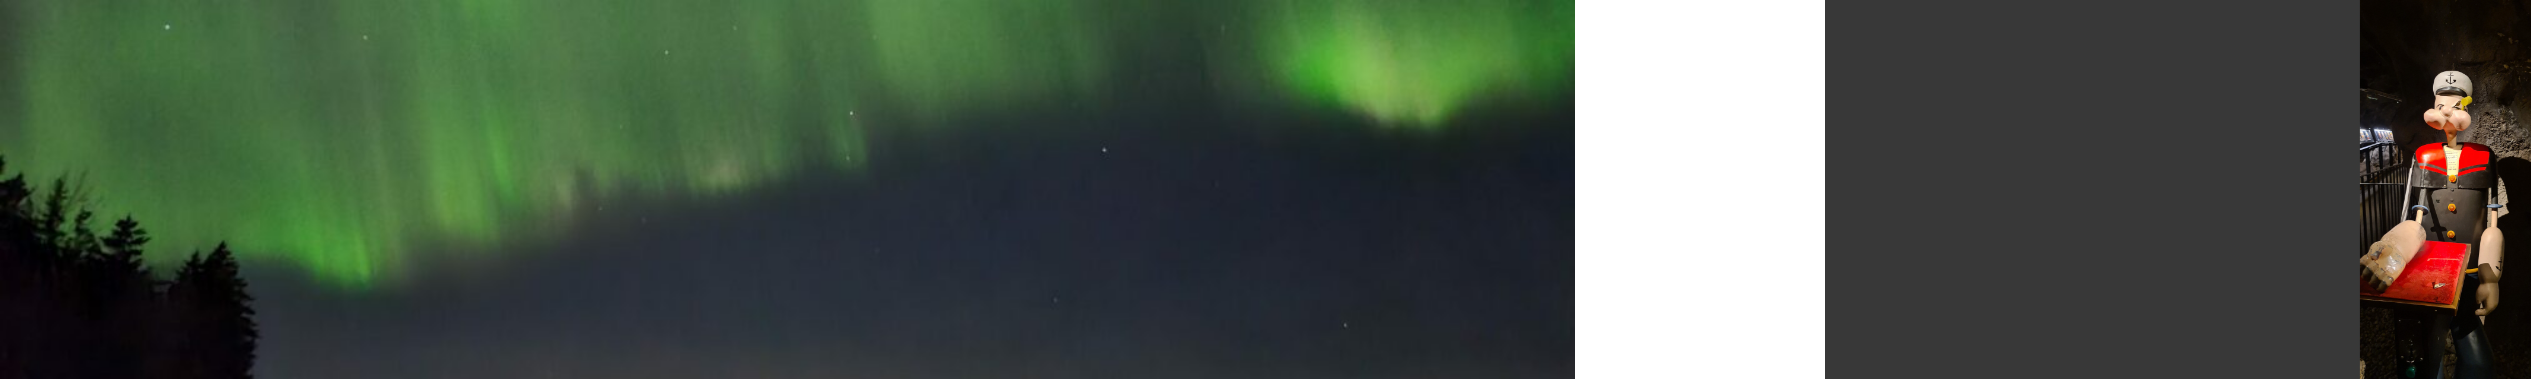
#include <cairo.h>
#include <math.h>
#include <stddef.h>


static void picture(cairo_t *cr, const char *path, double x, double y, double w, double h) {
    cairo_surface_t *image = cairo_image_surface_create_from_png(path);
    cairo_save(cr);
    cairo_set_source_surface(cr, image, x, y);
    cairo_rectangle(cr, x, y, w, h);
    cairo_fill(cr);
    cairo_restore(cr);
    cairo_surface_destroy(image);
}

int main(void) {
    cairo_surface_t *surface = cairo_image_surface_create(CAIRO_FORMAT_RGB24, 2531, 379);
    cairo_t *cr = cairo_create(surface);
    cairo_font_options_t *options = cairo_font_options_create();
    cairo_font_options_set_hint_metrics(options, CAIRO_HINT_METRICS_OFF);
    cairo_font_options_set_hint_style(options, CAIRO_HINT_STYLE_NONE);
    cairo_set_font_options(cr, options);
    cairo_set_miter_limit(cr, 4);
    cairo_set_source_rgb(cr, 0.22, 0.22, 0.22);
    cairo_paint(cr);
    picture(cr, "img1.png", 2359, 0, 172, 379);
    cairo_set_source_rgb(cr, 1, 1, 1);
    cairo_rectangle(cr, 1575, 0, 250, 379);
    cairo_fill(cr);
    picture(cr, "img2.png", 0, 0, 1575, 379);
    cairo_surface_write_to_png(surface, "page.png");
    cairo_font_options_destroy(options);
    cairo_destroy(cr);
    cairo_surface_destroy(surface);
    return 0;
}
